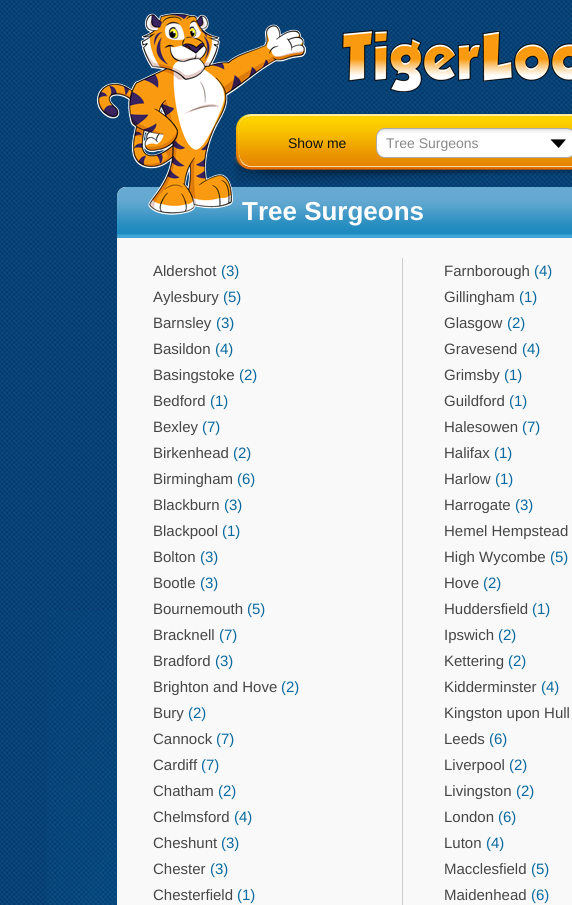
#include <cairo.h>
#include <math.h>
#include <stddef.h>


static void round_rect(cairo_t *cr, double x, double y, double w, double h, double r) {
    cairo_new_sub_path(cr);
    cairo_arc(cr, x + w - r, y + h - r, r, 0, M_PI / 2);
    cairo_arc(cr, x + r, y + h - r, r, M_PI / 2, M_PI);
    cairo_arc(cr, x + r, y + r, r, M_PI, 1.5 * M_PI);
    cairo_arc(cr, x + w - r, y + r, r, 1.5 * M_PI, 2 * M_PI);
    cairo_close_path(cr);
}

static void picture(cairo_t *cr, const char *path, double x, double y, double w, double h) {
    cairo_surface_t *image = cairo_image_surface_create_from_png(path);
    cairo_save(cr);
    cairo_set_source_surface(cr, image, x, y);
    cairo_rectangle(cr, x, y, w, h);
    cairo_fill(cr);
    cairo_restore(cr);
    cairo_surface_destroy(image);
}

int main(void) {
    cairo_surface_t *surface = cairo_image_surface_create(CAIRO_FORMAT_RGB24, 572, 905);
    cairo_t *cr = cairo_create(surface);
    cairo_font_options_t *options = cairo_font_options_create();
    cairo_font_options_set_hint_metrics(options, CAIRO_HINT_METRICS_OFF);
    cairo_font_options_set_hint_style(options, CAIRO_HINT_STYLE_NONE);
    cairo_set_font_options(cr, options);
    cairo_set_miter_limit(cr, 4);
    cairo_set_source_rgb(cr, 1, 1, 1);
    cairo_paint(cr);
    picture(cr, "img1.png", 0, 0, 572, 905);
    picture(cr, "img2.png", 47, 610, 70, 295);
    picture(cr, "img5.png", 233, 114, 339, 70);
    cairo_select_font_face(cr, "Liberation Sans", CAIRO_FONT_SLANT_NORMAL, CAIRO_FONT_WEIGHT_NORMAL);
    cairo_set_font_size(cr, 14);
    cairo_set_source_rgb(cr, 0.067, 0.067, 0.067);
    cairo_move_to(cr, 288, 148);
    cairo_show_text(cr, "Show me");
    cairo_set_source_rgb(cr, 0.976, 0.976, 0.976);
    round_rect(cr, 117, 187, 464, 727, 9);
    cairo_fill(cr);
    picture(cr, "img7.png", 117, 187, 455, 51);
    cairo_select_font_face(cr, "Liberation Sans", CAIRO_FONT_SLANT_NORMAL, CAIRO_FONT_WEIGHT_BOLD);
    cairo_set_font_size(cr, 26);
    cairo_set_source_rgb(cr, 1, 1, 1);
    cairo_move_to(cr, 242, 220);
    cairo_show_text(cr, "Tree Surgeons");
    picture(cr, "img3.png", 97, 13, 209, 202);
    picture(cr, "img4.png", 342, 30, 230, 62);
    picture(cr, "img6.png", 376, 128, 196, 30);
    cairo_select_font_face(cr, "Liberation Sans", CAIRO_FONT_SLANT_NORMAL, CAIRO_FONT_WEIGHT_NORMAL);
    cairo_set_font_size(cr, 14);
    cairo_set_source_rgb(cr, 0.537, 0.537, 0.537);
    cairo_move_to(cr, 386, 148);
    cairo_show_text(cr, "Tree Surgeons");
    cairo_set_font_size(cr, 15);
    cairo_set_source_rgb(cr, 0.275, 0.275, 0.275);
    cairo_move_to(cr, 153, 276);
    cairo_show_text(cr, "Aldershot");
    cairo_set_source_rgb(cr, 0.035, 0.412, 0.627);
    cairo_move_to(cr, 221, 276);
    cairo_show_text(cr, "(3)");
    cairo_set_source_rgb(cr, 0.275, 0.275, 0.275);
    cairo_move_to(cr, 153, 302);
    cairo_show_text(cr, "Aylesbury");
    cairo_set_source_rgb(cr, 0.035, 0.412, 0.627);
    cairo_move_to(cr, 223, 302);
    cairo_show_text(cr, "(5)");
    cairo_set_source_rgb(cr, 0.275, 0.275, 0.275);
    cairo_move_to(cr, 153, 328);
    cairo_show_text(cr, "Barnsley");
    cairo_set_source_rgb(cr, 0.035, 0.412, 0.627);
    cairo_move_to(cr, 216, 328);
    cairo_show_text(cr, "(3)");
    cairo_set_source_rgb(cr, 0.275, 0.275, 0.275);
    cairo_move_to(cr, 153, 354);
    cairo_show_text(cr, "Basildon");
    cairo_set_source_rgb(cr, 0.035, 0.412, 0.627);
    cairo_move_to(cr, 215, 354);
    cairo_show_text(cr, "(4)");
    cairo_set_source_rgb(cr, 0.275, 0.275, 0.275);
    cairo_move_to(cr, 153, 380);
    cairo_show_text(cr, "Basingstoke");
    cairo_set_source_rgb(cr, 0.035, 0.412, 0.627);
    cairo_move_to(cr, 239, 380);
    cairo_show_text(cr, "(2)");
    cairo_set_source_rgb(cr, 0.275, 0.275, 0.275);
    cairo_move_to(cr, 153, 406);
    cairo_show_text(cr, "Bedford");
    cairo_set_source_rgb(cr, 0.035, 0.412, 0.627);
    cairo_move_to(cr, 210, 406);
    cairo_show_text(cr, "(1)");
    cairo_set_source_rgb(cr, 0.275, 0.275, 0.275);
    cairo_move_to(cr, 153, 432);
    cairo_show_text(cr, "Bexley");
    cairo_set_source_rgb(cr, 0.035, 0.412, 0.627);
    cairo_move_to(cr, 202, 432);
    cairo_show_text(cr, "(7)");
    cairo_set_source_rgb(cr, 0.275, 0.275, 0.275);
    cairo_move_to(cr, 153, 458);
    cairo_show_text(cr, "Birkenhead");
    cairo_set_source_rgb(cr, 0.035, 0.412, 0.627);
    cairo_move_to(cr, 233, 458);
    cairo_show_text(cr, "(2)");
    cairo_set_source_rgb(cr, 0.275, 0.275, 0.275);
    cairo_move_to(cr, 153, 484);
    cairo_show_text(cr, "Birmingham");
    cairo_set_source_rgb(cr, 0.035, 0.412, 0.627);
    cairo_move_to(cr, 237, 484);
    cairo_show_text(cr, "(6)");
    cairo_set_source_rgb(cr, 0.275, 0.275, 0.275);
    cairo_move_to(cr, 153, 510);
    cairo_show_text(cr, "Blackburn");
    cairo_set_source_rgb(cr, 0.035, 0.412, 0.627);
    cairo_move_to(cr, 224, 510);
    cairo_show_text(cr, "(3)");
    cairo_set_source_rgb(cr, 0.275, 0.275, 0.275);
    cairo_move_to(cr, 153, 536);
    cairo_show_text(cr, "Blackpool");
    cairo_set_source_rgb(cr, 0.035, 0.412, 0.627);
    cairo_move_to(cr, 222, 536);
    cairo_show_text(cr, "(1)");
    cairo_set_source_rgb(cr, 0.275, 0.275, 0.275);
    cairo_move_to(cr, 153, 562);
    cairo_show_text(cr, "Bolton");
    cairo_set_source_rgb(cr, 0.035, 0.412, 0.627);
    cairo_move_to(cr, 200, 562);
    cairo_show_text(cr, "(3)");
    cairo_set_source_rgb(cr, 0.275, 0.275, 0.275);
    cairo_move_to(cr, 153, 588);
    cairo_show_text(cr, "Bootle");
    cairo_set_source_rgb(cr, 0.035, 0.412, 0.627);
    cairo_move_to(cr, 200, 588);
    cairo_show_text(cr, "(3)");
    cairo_set_source_rgb(cr, 0.275, 0.275, 0.275);
    cairo_move_to(cr, 153, 614);
    cairo_show_text(cr, "Bournemouth");
    cairo_set_source_rgb(cr, 0.035, 0.412, 0.627);
    cairo_move_to(cr, 247, 614);
    cairo_show_text(cr, "(5)");
    cairo_set_source_rgb(cr, 0.275, 0.275, 0.275);
    cairo_move_to(cr, 153, 640);
    cairo_show_text(cr, "Bracknell");
    cairo_set_source_rgb(cr, 0.035, 0.412, 0.627);
    cairo_move_to(cr, 219, 640);
    cairo_show_text(cr, "(7)");
    cairo_set_source_rgb(cr, 0.275, 0.275, 0.275);
    cairo_move_to(cr, 153, 666);
    cairo_show_text(cr, "Bradford");
    cairo_set_source_rgb(cr, 0.035, 0.412, 0.627);
    cairo_move_to(cr, 215, 666);
    cairo_show_text(cr, "(3)");
    cairo_set_source_rgb(cr, 0.275, 0.275, 0.275);
    cairo_move_to(cr, 153, 692);
    cairo_show_text(cr, "Brighton and Hove");
    cairo_set_source_rgb(cr, 0.035, 0.412, 0.627);
    cairo_move_to(cr, 281, 692);
    cairo_show_text(cr, "(2)");
    cairo_set_source_rgb(cr, 0.275, 0.275, 0.275);
    cairo_move_to(cr, 153, 718);
    cairo_show_text(cr, "Bury");
    cairo_set_source_rgb(cr, 0.035, 0.412, 0.627);
    cairo_move_to(cr, 188, 718);
    cairo_show_text(cr, "(2)");
    cairo_set_source_rgb(cr, 0.275, 0.275, 0.275);
    cairo_move_to(cr, 153, 744);
    cairo_show_text(cr, "Cannock");
    cairo_set_source_rgb(cr, 0.035, 0.412, 0.627);
    cairo_move_to(cr, 216, 744);
    cairo_show_text(cr, "(7)");
    cairo_set_source_rgb(cr, 0.275, 0.275, 0.275);
    cairo_move_to(cr, 153, 770);
    cairo_show_text(cr, "Cardiff");
    cairo_set_source_rgb(cr, 0.035, 0.412, 0.627);
    cairo_move_to(cr, 201, 770);
    cairo_show_text(cr, "(7)");
    cairo_set_source_rgb(cr, 0.275, 0.275, 0.275);
    cairo_move_to(cr, 153, 796);
    cairo_show_text(cr, "Chatham");
    cairo_set_source_rgb(cr, 0.035, 0.412, 0.627);
    cairo_move_to(cr, 218, 796);
    cairo_show_text(cr, "(2)");
    cairo_set_source_rgb(cr, 0.275, 0.275, 0.275);
    cairo_move_to(cr, 153, 822);
    cairo_show_text(cr, "Chelmsford");
    cairo_set_source_rgb(cr, 0.035, 0.412, 0.627);
    cairo_move_to(cr, 234, 822);
    cairo_show_text(cr, "(4)");
    cairo_set_source_rgb(cr, 0.275, 0.275, 0.275);
    cairo_move_to(cr, 153, 848);
    cairo_show_text(cr, "Cheshunt");
    cairo_set_source_rgb(cr, 0.035, 0.412, 0.627);
    cairo_move_to(cr, 221, 848);
    cairo_show_text(cr, "(3)");
    cairo_set_source_rgb(cr, 0.275, 0.275, 0.275);
    cairo_move_to(cr, 153, 874);
    cairo_show_text(cr, "Chester");
    cairo_set_source_rgb(cr, 0.035, 0.412, 0.627);
    cairo_move_to(cr, 210, 874);
    cairo_show_text(cr, "(3)");
    cairo_set_source_rgb(cr, 0.275, 0.275, 0.275);
    cairo_move_to(cr, 153, 900);
    cairo_show_text(cr, "Chesterfield");
    cairo_set_source_rgb(cr, 0.035, 0.412, 0.627);
    cairo_move_to(cr, 237, 900);
    cairo_show_text(cr, "(1)");
    cairo_set_source_rgb(cr, 0.8, 0.8, 0.8);
    cairo_rectangle(cr, 402, 258, 1, 647);
    cairo_fill(cr);
    cairo_set_source_rgb(cr, 0.275, 0.275, 0.275);
    cairo_move_to(cr, 444, 276);
    cairo_show_text(cr, "Farnborough");
    cairo_set_source_rgb(cr, 0.035, 0.412, 0.627);
    cairo_move_to(cr, 534, 276);
    cairo_show_text(cr, "(4)");
    cairo_set_source_rgb(cr, 0.275, 0.275, 0.275);
    cairo_move_to(cr, 444, 302);
    cairo_show_text(cr, "Gillingham");
    cairo_set_source_rgb(cr, 0.035, 0.412, 0.627);
    cairo_move_to(cr, 519, 302);
    cairo_show_text(cr, "(1)");
    cairo_set_source_rgb(cr, 0.275, 0.275, 0.275);
    cairo_move_to(cr, 444, 328);
    cairo_show_text(cr, "Glasgow");
    cairo_set_source_rgb(cr, 0.035, 0.412, 0.627);
    cairo_move_to(cr, 507, 328);
    cairo_show_text(cr, "(2)");
    cairo_set_source_rgb(cr, 0.275, 0.275, 0.275);
    cairo_move_to(cr, 444, 354);
    cairo_show_text(cr, "Gravesend");
    cairo_set_source_rgb(cr, 0.035, 0.412, 0.627);
    cairo_move_to(cr, 522, 354);
    cairo_show_text(cr, "(4)");
    cairo_set_source_rgb(cr, 0.275, 0.275, 0.275);
    cairo_move_to(cr, 444, 380);
    cairo_show_text(cr, "Grimsby");
    cairo_set_source_rgb(cr, 0.035, 0.412, 0.627);
    cairo_move_to(cr, 504, 380);
    cairo_show_text(cr, "(1)");
    cairo_set_source_rgb(cr, 0.275, 0.275, 0.275);
    cairo_move_to(cr, 444, 406);
    cairo_show_text(cr, "Guildford");
    cairo_set_source_rgb(cr, 0.035, 0.412, 0.627);
    cairo_move_to(cr, 509, 406);
    cairo_show_text(cr, "(1)");
    cairo_set_source_rgb(cr, 0.275, 0.275, 0.275);
    cairo_move_to(cr, 444, 432);
    cairo_show_text(cr, "Halesowen");
    cairo_set_source_rgb(cr, 0.035, 0.412, 0.627);
    cairo_move_to(cr, 522, 432);
    cairo_show_text(cr, "(7)");
    cairo_set_source_rgb(cr, 0.275, 0.275, 0.275);
    cairo_move_to(cr, 444, 458);
    cairo_show_text(cr, "Halifax");
    cairo_set_source_rgb(cr, 0.035, 0.412, 0.627);
    cairo_move_to(cr, 494, 458);
    cairo_show_text(cr, "(1)");
    cairo_set_source_rgb(cr, 0.275, 0.275, 0.275);
    cairo_move_to(cr, 444, 484);
    cairo_show_text(cr, "Harlow");
    cairo_set_source_rgb(cr, 0.035, 0.412, 0.627);
    cairo_move_to(cr, 495, 484);
    cairo_show_text(cr, "(1)");
    cairo_set_source_rgb(cr, 0.275, 0.275, 0.275);
    cairo_move_to(cr, 444, 510);
    cairo_show_text(cr, "Harrogate");
    cairo_set_source_rgb(cr, 0.035, 0.412, 0.627);
    cairo_move_to(cr, 515, 510);
    cairo_show_text(cr, "(3)");
    cairo_set_source_rgb(cr, 0.275, 0.275, 0.275);
    cairo_move_to(cr, 444, 536);
    cairo_show_text(cr, "Hemel Hempstead");
    cairo_move_to(cr, 444, 562);
    cairo_show_text(cr, "High Wycombe");
    cairo_set_source_rgb(cr, 0.035, 0.412, 0.627);
    cairo_move_to(cr, 550, 562);
    cairo_show_text(cr, "(5)");
    cairo_set_source_rgb(cr, 0.275, 0.275, 0.275);
    cairo_move_to(cr, 444, 588);
    cairo_show_text(cr, "Hove");
    cairo_set_source_rgb(cr, 0.035, 0.412, 0.627);
    cairo_move_to(cr, 483, 588);
    cairo_show_text(cr, "(2)");
    cairo_set_source_rgb(cr, 0.275, 0.275, 0.275);
    cairo_move_to(cr, 444, 614);
    cairo_show_text(cr, "Huddersfield");
    cairo_set_source_rgb(cr, 0.035, 0.412, 0.627);
    cairo_move_to(cr, 532, 614);
    cairo_show_text(cr, "(1)");
    cairo_set_source_rgb(cr, 0.275, 0.275, 0.275);
    cairo_move_to(cr, 444, 640);
    cairo_show_text(cr, "Ipswich");
    cairo_set_source_rgb(cr, 0.035, 0.412, 0.627);
    cairo_move_to(cr, 498, 640);
    cairo_show_text(cr, "(2)");
    cairo_set_source_rgb(cr, 0.275, 0.275, 0.275);
    cairo_move_to(cr, 444, 666);
    cairo_show_text(cr, "Kettering");
    cairo_set_source_rgb(cr, 0.035, 0.412, 0.627);
    cairo_move_to(cr, 508, 666);
    cairo_show_text(cr, "(2)");
    cairo_set_source_rgb(cr, 0.275, 0.275, 0.275);
    cairo_move_to(cr, 444, 692);
    cairo_show_text(cr, "Kidderminster");
    cairo_set_source_rgb(cr, 0.035, 0.412, 0.627);
    cairo_move_to(cr, 541, 692);
    cairo_show_text(cr, "(4)");
    cairo_set_source_rgb(cr, 0.275, 0.275, 0.275);
    cairo_move_to(cr, 444, 718);
    cairo_show_text(cr, "Kingston upon Hull");
    cairo_move_to(cr, 444, 744);
    cairo_show_text(cr, "Leeds");
    cairo_set_source_rgb(cr, 0.035, 0.412, 0.627);
    cairo_move_to(cr, 489, 744);
    cairo_show_text(cr, "(6)");
    cairo_set_source_rgb(cr, 0.275, 0.275, 0.275);
    cairo_move_to(cr, 444, 770);
    cairo_show_text(cr, "Liverpool");
    cairo_set_source_rgb(cr, 0.035, 0.412, 0.627);
    cairo_move_to(cr, 509, 770);
    cairo_show_text(cr, "(2)");
    cairo_set_source_rgb(cr, 0.275, 0.275, 0.275);
    cairo_move_to(cr, 444, 796);
    cairo_show_text(cr, "Livingston");
    cairo_set_source_rgb(cr, 0.035, 0.412, 0.627);
    cairo_move_to(cr, 516, 796);
    cairo_show_text(cr, "(2)");
    cairo_set_source_rgb(cr, 0.275, 0.275, 0.275);
    cairo_move_to(cr, 444, 822);
    cairo_show_text(cr, "London");
    cairo_set_source_rgb(cr, 0.035, 0.412, 0.627);
    cairo_move_to(cr, 498, 822);
    cairo_show_text(cr, "(6)");
    cairo_set_source_rgb(cr, 0.275, 0.275, 0.275);
    cairo_move_to(cr, 444, 848);
    cairo_show_text(cr, "Luton");
    cairo_set_source_rgb(cr, 0.035, 0.412, 0.627);
    cairo_move_to(cr, 486, 848);
    cairo_show_text(cr, "(4)");
    cairo_set_source_rgb(cr, 0.275, 0.275, 0.275);
    cairo_move_to(cr, 444, 874);
    cairo_show_text(cr, "Macclesfield");
    cairo_set_source_rgb(cr, 0.035, 0.412, 0.627);
    cairo_move_to(cr, 531, 874);
    cairo_show_text(cr, "(5)");
    cairo_set_source_rgb(cr, 0.275, 0.275, 0.275);
    cairo_move_to(cr, 444, 900);
    cairo_show_text(cr, "Maidenhead");
    cairo_set_source_rgb(cr, 0.035, 0.412, 0.627);
    cairo_move_to(cr, 531, 900);
    cairo_show_text(cr, "(6)");
    cairo_surface_write_to_png(surface, "page.png");
    cairo_font_options_destroy(options);
    cairo_destroy(cr);
    cairo_surface_destroy(surface);
    return 0;
}
